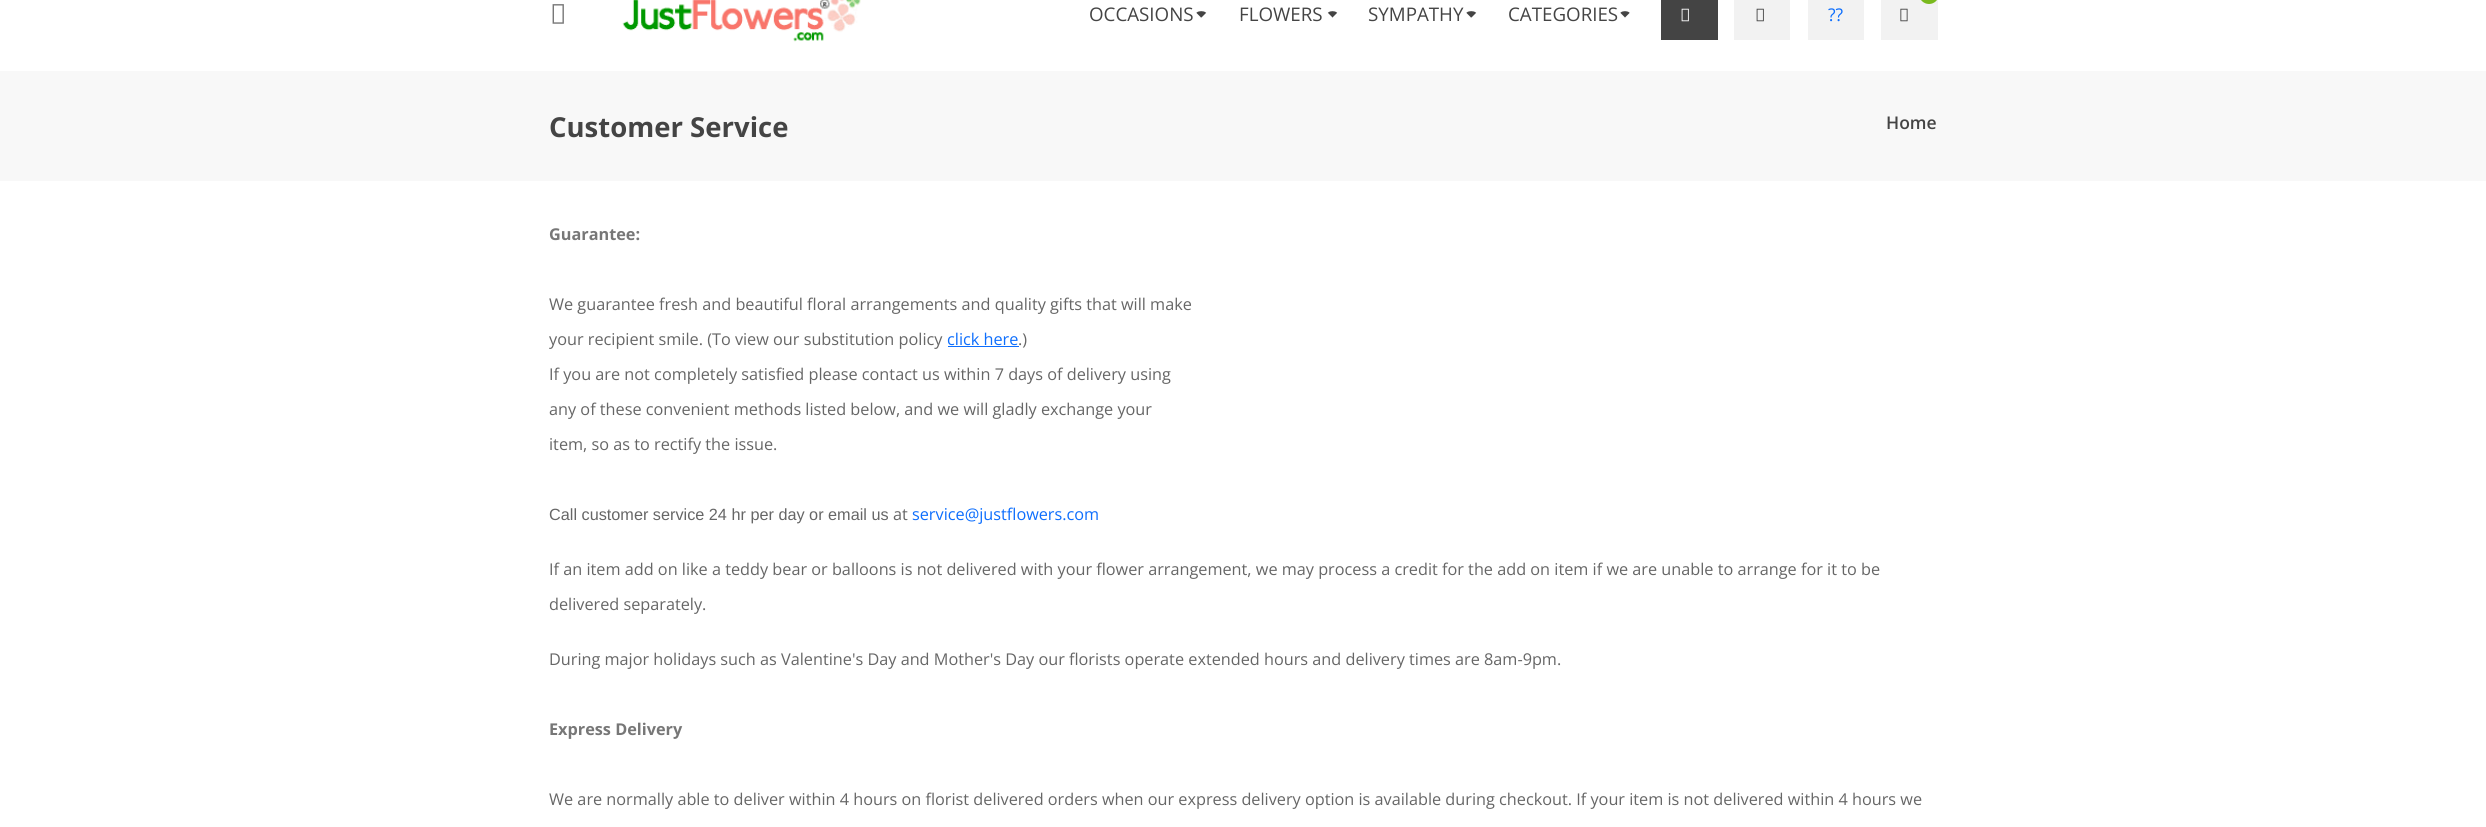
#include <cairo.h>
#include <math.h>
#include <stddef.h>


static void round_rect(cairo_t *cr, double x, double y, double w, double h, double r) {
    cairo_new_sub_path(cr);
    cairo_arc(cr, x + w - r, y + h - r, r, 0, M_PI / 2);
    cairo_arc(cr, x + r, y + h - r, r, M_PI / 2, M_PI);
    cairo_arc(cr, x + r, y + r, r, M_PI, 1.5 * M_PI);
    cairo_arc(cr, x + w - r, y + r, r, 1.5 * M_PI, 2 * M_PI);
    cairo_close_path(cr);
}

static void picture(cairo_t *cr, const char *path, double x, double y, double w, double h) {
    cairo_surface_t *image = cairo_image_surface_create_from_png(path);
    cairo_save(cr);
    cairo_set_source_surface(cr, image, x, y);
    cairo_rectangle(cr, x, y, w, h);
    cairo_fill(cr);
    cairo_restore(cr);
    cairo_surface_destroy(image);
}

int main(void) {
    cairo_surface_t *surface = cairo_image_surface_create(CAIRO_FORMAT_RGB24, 2486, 827);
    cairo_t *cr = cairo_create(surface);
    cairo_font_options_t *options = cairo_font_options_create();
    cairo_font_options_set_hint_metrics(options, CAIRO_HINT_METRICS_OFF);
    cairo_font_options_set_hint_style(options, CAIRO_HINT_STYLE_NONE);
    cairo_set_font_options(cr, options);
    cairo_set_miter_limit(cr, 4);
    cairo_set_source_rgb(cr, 1, 1, 1);
    cairo_paint(cr);
    picture(cr, "img1.png", 552, 4, 12, 20);
    picture(cr, "img2.png", 622, 0, 239, 42);
    cairo_select_font_face(cr, "Open Sans", CAIRO_FONT_SLANT_NORMAL, CAIRO_FONT_WEIGHT_NORMAL);
    cairo_set_font_size(cr, 18.75);
    cairo_set_source_rgb(cr, 0.267, 0.267, 0.267);
    cairo_move_to(cr, 1089, 21);
    cairo_show_text(cr, "OCCASIONS");
    cairo_new_path(cr);
    cairo_move_to(cr, 1198.5, 15);
    cairo_curve_to(cr, 1199.5, 14, 1203, 14, 1204, 15);
    cairo_set_line_width(cr, 6.2);
    cairo_stroke(cr);
    cairo_move_to(cr, 1239, 21);
    cairo_show_text(cr, "FLOWERS");
    cairo_new_path(cr);
    cairo_move_to(cr, 1330, 15);
    cairo_curve_to(cr, 1331, 14, 1334, 14, 1335, 15);
    cairo_stroke(cr);
    cairo_move_to(cr, 1368, 21);
    cairo_show_text(cr, "SYMPATHY");
    cairo_new_path(cr);
    cairo_move_to(cr, 1468.5, 15);
    cairo_curve_to(cr, 1469.5, 14, 1473, 14, 1474, 15);
    cairo_stroke(cr);
    cairo_move_to(cr, 1508, 21);
    cairo_show_text(cr, "CATEGORIES");
    cairo_new_path(cr);
    cairo_move_to(cr, 1622.5, 15);
    cairo_curve_to(cr, 1623.5, 14, 1626.5, 14, 1627.5, 15);
    cairo_stroke(cr);
    cairo_rectangle(cr, 1661, 0, 57, 40);
    cairo_fill(cr);
    picture(cr, "img3.png", 1681, 8, 8, 14);
    cairo_set_source_rgb(cr, 0.949, 0.949, 0.949);
    cairo_rectangle(cr, 1734, 0, 56, 40);
    cairo_fill(cr);
    picture(cr, "img4.png", 1756, 8, 8, 14);
    cairo_rectangle(cr, 1808, 0, 56, 40);
    cairo_fill(cr);
    cairo_set_font_size(cr, 17.5);
    cairo_set_source_rgb(cr, 0.051, 0.431, 0.992);
    cairo_move_to(cr, 1828, 21);
    cairo_show_text(cr, "?\077");
    cairo_set_source_rgb(cr, 0.949, 0.949, 0.949);
    cairo_rectangle(cr, 1881, 0, 57, 40);
    cairo_fill(cr);
    cairo_set_source_rgb(cr, 0.478, 0.729, 0.118);
    round_rect(cr, 1919, -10, 20, 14, 10);
    cairo_fill(cr);
    picture(cr, "img5.png", 1900, 8, 8, 14);
    cairo_set_source_rgb(cr, 0.969, 0.969, 0.969);
    cairo_rectangle(cr, 0, 71, 2486, 110);
    cairo_fill(cr);
    cairo_select_font_face(cr, "Open Sans", CAIRO_FONT_SLANT_NORMAL, CAIRO_FONT_WEIGHT_BOLD);
    cairo_set_font_size(cr, 27.5);
    cairo_set_source_rgb(cr, 0.267, 0.267, 0.267);
    cairo_move_to(cr, 549, 137);
    cairo_show_text(cr, "Customer Service");
    cairo_select_font_face(cr, "Open Sans SemiBold", CAIRO_FONT_SLANT_NORMAL, CAIRO_FONT_WEIGHT_NORMAL);
    cairo_set_font_size(cr, 17.5);
    cairo_move_to(cr, 1886, 129);
    cairo_show_text(cr, "Home");
    cairo_select_font_face(cr, "Open Sans", CAIRO_FONT_SLANT_NORMAL, CAIRO_FONT_WEIGHT_BOLD);
    cairo_set_font_size(cr, 16.25);
    cairo_set_source_rgb(cr, 0.467, 0.467, 0.467);
    cairo_move_to(cr, 549, 240);
    cairo_show_text(cr, "Guarantee:");
    cairo_select_font_face(cr, "Open Sans", CAIRO_FONT_SLANT_NORMAL, CAIRO_FONT_WEIGHT_NORMAL);
    cairo_set_source_rgb(cr, 0.4, 0.4, 0.4);
    cairo_move_to(cr, 549, 310);
    cairo_show_text(cr, "We guarantee fresh and beautiful floral arrangements and quality gifts that will make");
    cairo_move_to(cr, 549, 345);
    cairo_show_text(cr, "your recipient smile. (To view our substitution policy");
    cairo_set_source_rgb(cr, 0.051, 0.431, 0.992);
    cairo_move_to(cr, 947, 345);
    cairo_show_text(cr, "click here");
    cairo_set_source_rgb(cr, 0.4, 0.4, 0.4);
    cairo_move_to(cr, 1018, 345);
    cairo_show_text(cr, ".)");
    cairo_set_source_rgb(cr, 0.051, 0.431, 0.992);
    cairo_rectangle(cr, 948, 346, 71, 1);
    cairo_fill(cr);
    cairo_set_source_rgb(cr, 0.4, 0.4, 0.4);
    cairo_move_to(cr, 549, 380);
    cairo_show_text(cr, "If you are not completely satisfied please contact us within 7 days of delivery using");
    cairo_move_to(cr, 549, 415);
    cairo_show_text(cr, "any of these convenient methods listed below, and we will gladly exchange your");
    cairo_move_to(cr, 549, 450);
    cairo_show_text(cr, "item, so as to rectify the issue.");
    cairo_select_font_face(cr, "Liberation Sans", CAIRO_FONT_SLANT_NORMAL, CAIRO_FONT_WEIGHT_NORMAL);
    cairo_move_to(cr, 549, 520);
    cairo_show_text(cr, "Call customer service 24 hr per day or email us");
    cairo_select_font_face(cr, "Open Sans", CAIRO_FONT_SLANT_NORMAL, CAIRO_FONT_WEIGHT_NORMAL);
    cairo_move_to(cr, 893, 520);
    cairo_show_text(cr, "at");
    cairo_set_source_rgb(cr, 0.051, 0.431, 0.992);
    cairo_move_to(cr, 912, 520);
    cairo_show_text(cr, "service@justflowers.com");
    cairo_set_source_rgb(cr, 0.4, 0.4, 0.4);
    cairo_move_to(cr, 549, 575);
    cairo_show_text(cr, "If an item add on like a teddy bear or balloons is not delivered with your flower arrangement, we may process a credit for the add on item if we are unable to arrange for it to be");
    cairo_move_to(cr, 549, 610);
    cairo_show_text(cr, "delivered separately.");
    cairo_move_to(cr, 549, 665);
    cairo_show_text(cr, "During major holidays such as Valentine's Day and Mother's Day our florists operate extended hours and delivery times are 8am-9pm.");
    cairo_select_font_face(cr, "Open Sans", CAIRO_FONT_SLANT_NORMAL, CAIRO_FONT_WEIGHT_BOLD);
    cairo_set_source_rgb(cr, 0.467, 0.467, 0.467);
    cairo_move_to(cr, 549, 735);
    cairo_show_text(cr, "Express Delivery");
    cairo_select_font_face(cr, "Open Sans", CAIRO_FONT_SLANT_NORMAL, CAIRO_FONT_WEIGHT_NORMAL);
    cairo_set_source_rgb(cr, 0.4, 0.4, 0.4);
    cairo_move_to(cr, 549, 805);
    cairo_show_text(cr, "We are normally able to deliver within 4 hours on florist delivered orders when our express delivery option is available during checkout. If your item is not delivered within 4 hours we");
    cairo_surface_write_to_png(surface, "page.png");
    cairo_font_options_destroy(options);
    cairo_destroy(cr);
    cairo_surface_destroy(surface);
    return 0;
}
